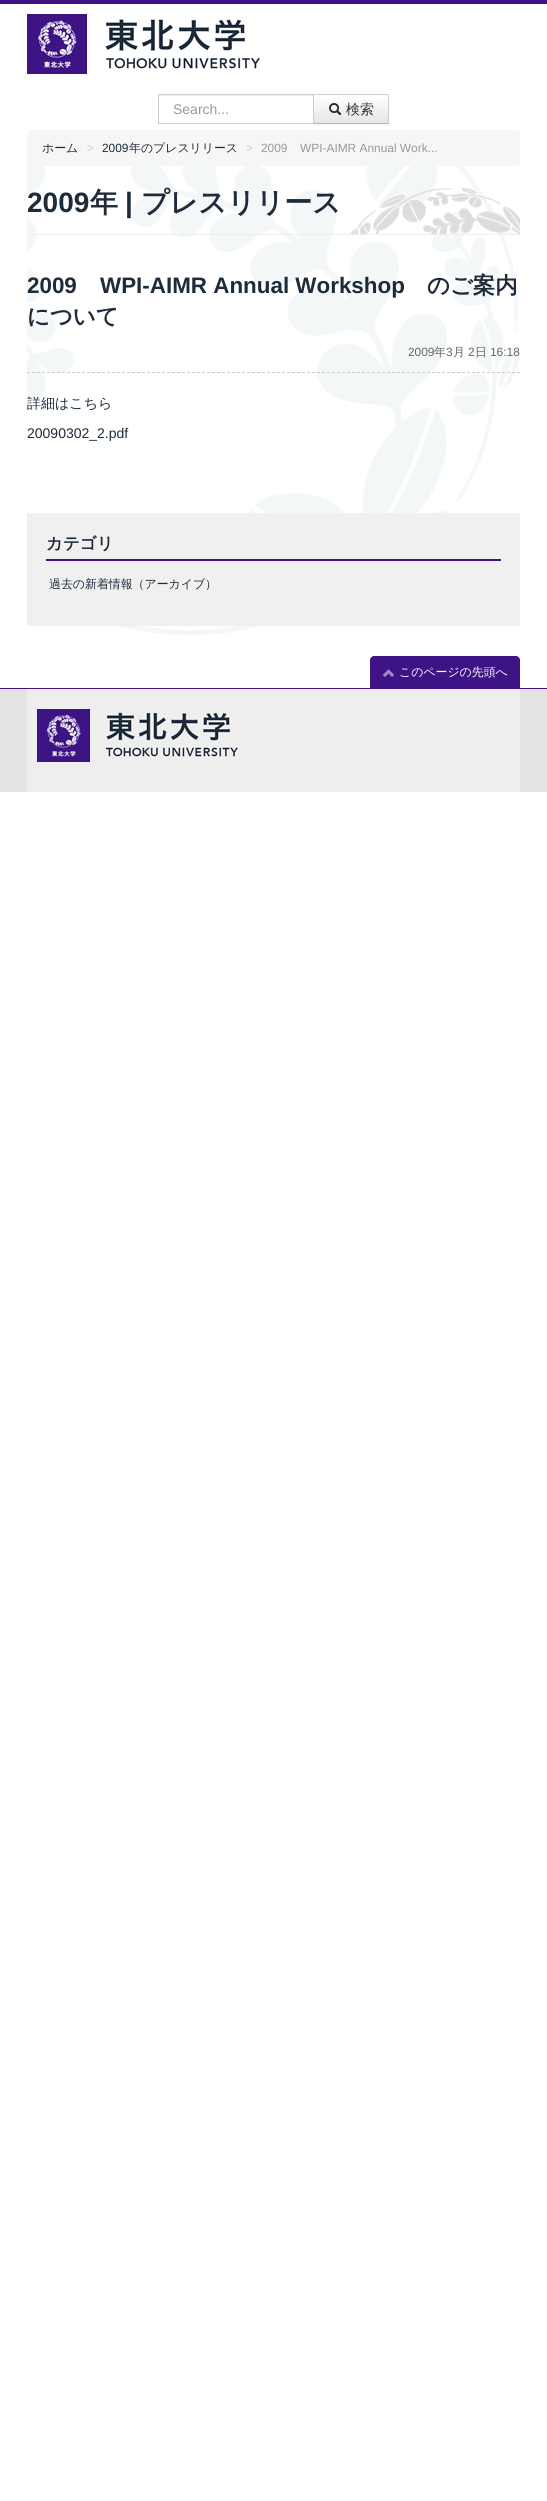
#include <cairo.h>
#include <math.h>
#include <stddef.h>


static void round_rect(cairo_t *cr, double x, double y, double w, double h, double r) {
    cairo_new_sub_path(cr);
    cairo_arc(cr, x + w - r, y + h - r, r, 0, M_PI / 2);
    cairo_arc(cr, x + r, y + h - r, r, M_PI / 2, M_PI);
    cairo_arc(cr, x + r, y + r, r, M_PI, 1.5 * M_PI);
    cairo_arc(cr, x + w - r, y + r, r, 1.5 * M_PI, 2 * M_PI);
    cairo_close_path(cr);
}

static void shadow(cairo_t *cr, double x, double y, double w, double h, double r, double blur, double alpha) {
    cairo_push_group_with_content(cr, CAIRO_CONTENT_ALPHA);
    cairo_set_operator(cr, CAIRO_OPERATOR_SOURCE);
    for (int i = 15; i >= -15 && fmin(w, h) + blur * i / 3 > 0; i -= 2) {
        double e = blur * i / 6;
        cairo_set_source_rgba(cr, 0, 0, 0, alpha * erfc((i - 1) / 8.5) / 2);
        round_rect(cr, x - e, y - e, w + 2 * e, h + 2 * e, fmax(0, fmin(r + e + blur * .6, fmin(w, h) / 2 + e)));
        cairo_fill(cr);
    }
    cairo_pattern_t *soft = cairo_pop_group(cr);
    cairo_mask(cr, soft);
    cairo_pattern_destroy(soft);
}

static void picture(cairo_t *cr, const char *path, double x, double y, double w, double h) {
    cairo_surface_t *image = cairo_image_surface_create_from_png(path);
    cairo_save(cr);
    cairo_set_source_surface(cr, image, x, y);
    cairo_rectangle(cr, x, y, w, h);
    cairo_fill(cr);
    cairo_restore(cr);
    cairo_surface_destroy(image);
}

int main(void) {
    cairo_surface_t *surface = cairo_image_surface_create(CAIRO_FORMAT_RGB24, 547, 2501);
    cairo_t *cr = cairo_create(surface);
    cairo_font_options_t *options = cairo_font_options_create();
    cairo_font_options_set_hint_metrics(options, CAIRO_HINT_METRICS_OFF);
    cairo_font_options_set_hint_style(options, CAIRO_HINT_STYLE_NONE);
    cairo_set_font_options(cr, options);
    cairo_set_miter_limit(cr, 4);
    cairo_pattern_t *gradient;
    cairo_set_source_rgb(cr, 1, 1, 1);
    cairo_paint(cr);
    cairo_set_source_rgb(cr, 0.243, 0.078, 0.522);
    cairo_rectangle(cr, 0, 0, 547, 4);
    cairo_fill(cr);
    picture(cr, "img1.png", 27, 14, 233, 60);
    cairo_set_source_rgb(cr, 0, 0, 0);
    shadow(cr, 313, 95, 76, 30, 0, 1, 0.05);
    cairo_set_source_rgb(cr, 1, 1, 1);
    cairo_rectangle(cr, 312, 96, 1, 27);
    cairo_fill(cr);
    cairo_set_source_rgb(cr, 0.925, 0.925, 0.925);
    cairo_rectangle(cr, 159, 95, 154, 1);
    cairo_fill(cr);
    cairo_set_source_rgb(cr, 0.961, 0.961, 0.961);
    cairo_rectangle(cr, 314, 94, 75, 29);
    cairo_fill(cr);
    cairo_set_source_rgb(cr, 0.816, 0.816, 0.816);
    cairo_new_path(cr);
    cairo_move_to(cr, 313, 94);
    cairo_line_to(cr, 389, 94);
    cairo_line_to(cr, 388, 95);
    cairo_line_to(cr, 314, 95);
    cairo_close_path(cr);
    cairo_fill(cr);
    gradient = cairo_pattern_create_linear(351, 95, 351, 123);
    cairo_pattern_add_color_stop_rgba(gradient, 0, 1, 1, 1, 1);
    cairo_pattern_add_color_stop_rgba(gradient, 1, 0.902, 0.902, 0.902, 1);
    cairo_set_source(cr, gradient);
    cairo_pattern_destroy(gradient);
    cairo_rectangle(cr, 314, 95, 75, 28);
    cairo_fill(cr);
    cairo_set_source_rgba(cr, 0, 0, 0, 0.15);
    cairo_new_path(cr);
    cairo_move_to(cr, 389, 94);
    cairo_line_to(cr, 389, 124);
    cairo_line_to(cr, 388, 123);
    cairo_line_to(cr, 388, 95);
    cairo_close_path(cr);
    cairo_fill(cr);
    cairo_set_source_rgba(cr, 0, 0, 0, 0.25);
    cairo_new_path(cr);
    cairo_move_to(cr, 389, 124);
    cairo_line_to(cr, 313, 124);
    cairo_line_to(cr, 314, 123);
    cairo_line_to(cr, 388, 123);
    cairo_close_path(cr);
    cairo_fill(cr);
    cairo_rectangle(cr, 158.5, 94.5, 155, 29);
    cairo_set_source_rgb(cr, 0.8, 0.8, 0.8);
    cairo_set_line_width(cr, 1);
    cairo_stroke(cr);
    cairo_select_font_face(cr, "Liberation Sans", CAIRO_FONT_SLANT_NORMAL, CAIRO_FONT_WEIGHT_NORMAL);
    cairo_set_font_size(cr, 14);
    cairo_set_source_rgb(cr, 0.6, 0.6, 0.6);
    cairo_move_to(cr, 173, 114);
    cairo_show_text(cr, "Search...");
    picture(cr, "img2.png", 329, 103, 13, 13);
    cairo_select_font_face(cr, "WenQuanYi Zen Hei Medium", CAIRO_FONT_SLANT_NORMAL, CAIRO_FONT_WEIGHT_NORMAL);
    cairo_set_source_rgb(cr, 0.2, 0.2, 0.2);
    cairo_move_to(cr, 346, 114);
    cairo_show_text(cr, "検索");
    picture(cr, "img3.png", 27, 130, 492, 505);
    cairo_set_source_rgb(cr, 0.961, 0.961, 0.961);
    round_rect(cr, 27, 130, 493, 36, 4);
    cairo_fill(cr);
    cairo_set_font_size(cr, 11.9);
    cairo_set_source_rgb(cr, 0.114, 0.169, 0.231);
    cairo_move_to(cr, 42, 152);
    cairo_show_text(cr, "ホーム");
    cairo_select_font_face(cr, "Liberation Sans", CAIRO_FONT_SLANT_NORMAL, CAIRO_FONT_WEIGHT_NORMAL);
    cairo_set_source_rgb(cr, 0.8, 0.8, 0.8);
    cairo_move_to(cr, 87, 152);
    cairo_show_text(cr, ">");
    cairo_set_source_rgb(cr, 0.114, 0.169, 0.231);
    cairo_move_to(cr, 102, 152);
    cairo_show_text(cr, "2009");
    cairo_select_font_face(cr, "WenQuanYi Zen Hei Medium", CAIRO_FONT_SLANT_NORMAL, CAIRO_FONT_WEIGHT_NORMAL);
    cairo_move_to(cr, 129, 152);
    cairo_show_text(cr, "年のプレスリリース");
    cairo_select_font_face(cr, "Liberation Sans", CAIRO_FONT_SLANT_NORMAL, CAIRO_FONT_WEIGHT_NORMAL);
    cairo_set_source_rgb(cr, 0.8, 0.8, 0.8);
    cairo_move_to(cr, 246, 152);
    cairo_show_text(cr, ">");
    cairo_set_source_rgb(cr, 0.6, 0.6, 0.6);
    cairo_move_to(cr, 261, 152);
    cairo_show_text(cr, "2009");
    cairo_move_to(cr, 300, 152);
    cairo_show_text(cr, "WPI-AIMR Annual Work...");
    picture(cr, "img4.png", 350, 188, 170, 46);
    cairo_set_source_rgb(cr, 0.933, 0.933, 0.933);
    cairo_rectangle(cr, 27, 234, 493, 1);
    cairo_fill(cr);
    cairo_select_font_face(cr, "Liberation Sans", CAIRO_FONT_SLANT_NORMAL, CAIRO_FONT_WEIGHT_BOLD);
    cairo_set_font_size(cr, 28);
    cairo_set_source_rgb(cr, 0.114, 0.169, 0.231);
    cairo_move_to(cr, 27, 212);
    cairo_show_text(cr, "2009");
    cairo_select_font_face(cr, "WenQuanYi Zen Hei", CAIRO_FONT_SLANT_NORMAL, CAIRO_FONT_WEIGHT_BOLD);
    cairo_move_to(cr, 90, 212);
    cairo_show_text(cr, "年");
    cairo_select_font_face(cr, "Liberation Sans", CAIRO_FONT_SLANT_NORMAL, CAIRO_FONT_WEIGHT_BOLD);
    cairo_move_to(cr, 125, 212);
    cairo_show_text(cr, "|");
    cairo_select_font_face(cr, "WenQuanYi Zen Hei", CAIRO_FONT_SLANT_NORMAL, CAIRO_FONT_WEIGHT_BOLD);
    cairo_move_to(cr, 141, 212);
    cairo_show_text(cr, "プレスリリース");
    cairo_new_path(cr);
    cairo_move_to(cr, 27, 372.5);
    cairo_line_to(cr, 520, 372.5);
    cairo_set_source_rgb(cr, 0.8, 0.8, 0.8);
    cairo_set_dash(cr, (double[]){3, 2}, 2, 0);
    cairo_stroke(cr);
    cairo_select_font_face(cr, "Liberation Sans", CAIRO_FONT_SLANT_NORMAL, CAIRO_FONT_WEIGHT_BOLD);
    cairo_set_font_size(cr, 22.4);
    cairo_set_source_rgb(cr, 0.114, 0.169, 0.231);
    cairo_move_to(cr, 27, 293);
    cairo_show_text(cr, "2009");
    cairo_move_to(cr, 100, 293);
    cairo_show_text(cr, "WPI-AIMR Annual Workshop");
    cairo_select_font_face(cr, "WenQuanYi Zen Hei", CAIRO_FONT_SLANT_NORMAL, CAIRO_FONT_WEIGHT_BOLD);
    cairo_move_to(cr, 427, 293);
    cairo_show_text(cr, "のご案内");
    cairo_move_to(cr, 27, 324);
    cairo_show_text(cr, "について");
    cairo_select_font_face(cr, "Liberation Sans", CAIRO_FONT_SLANT_NORMAL, CAIRO_FONT_WEIGHT_NORMAL);
    cairo_set_font_size(cr, 11.9);
    cairo_set_source_rgb(cr, 0.4, 0.4, 0.4);
    cairo_move_to(cr, 408, 356);
    cairo_show_text(cr, "2009");
    cairo_select_font_face(cr, "WenQuanYi Zen Hei Medium", CAIRO_FONT_SLANT_NORMAL, CAIRO_FONT_WEIGHT_NORMAL);
    cairo_move_to(cr, 434, 356);
    cairo_show_text(cr, "年");
    cairo_select_font_face(cr, "Liberation Sans", CAIRO_FONT_SLANT_NORMAL, CAIRO_FONT_WEIGHT_NORMAL);
    cairo_move_to(cr, 446, 356);
    cairo_show_text(cr, "3");
    cairo_select_font_face(cr, "WenQuanYi Zen Hei Medium", CAIRO_FONT_SLANT_NORMAL, CAIRO_FONT_WEIGHT_NORMAL);
    cairo_move_to(cr, 453, 356);
    cairo_show_text(cr, "月");
    cairo_select_font_face(cr, "Liberation Sans", CAIRO_FONT_SLANT_NORMAL, CAIRO_FONT_WEIGHT_NORMAL);
    cairo_move_to(cr, 468, 356);
    cairo_show_text(cr, "2");
    cairo_select_font_face(cr, "WenQuanYi Zen Hei Medium", CAIRO_FONT_SLANT_NORMAL, CAIRO_FONT_WEIGHT_NORMAL);
    cairo_move_to(cr, 475, 356);
    cairo_show_text(cr, "日");
    cairo_select_font_face(cr, "Liberation Sans", CAIRO_FONT_SLANT_NORMAL, CAIRO_FONT_WEIGHT_NORMAL);
    cairo_move_to(cr, 490, 356);
    cairo_show_text(cr, "16:18");
    cairo_select_font_face(cr, "WenQuanYi Zen Hei Medium", CAIRO_FONT_SLANT_NORMAL, CAIRO_FONT_WEIGHT_NORMAL);
    cairo_set_font_size(cr, 14);
    cairo_set_source_rgb(cr, 0.114, 0.169, 0.231);
    cairo_move_to(cr, 27, 408);
    cairo_show_text(cr, "詳細はこちら");
    cairo_select_font_face(cr, "Liberation Sans", CAIRO_FONT_SLANT_NORMAL, CAIRO_FONT_WEIGHT_NORMAL);
    cairo_move_to(cr, 27, 438);
    cairo_show_text(cr, "20090302_2.pdf");
    cairo_set_source_rgb(cr, 0.941, 0.941, 0.941);
    cairo_rectangle(cr, 27, 513, 493, 113);
    cairo_fill(cr);
    cairo_set_source_rgb(cr, 0.243, 0.078, 0.522);
    cairo_rectangle(cr, 46, 559, 455, 2);
    cairo_fill(cr);
    cairo_select_font_face(cr, "WenQuanYi Zen Hei", CAIRO_FONT_SLANT_NORMAL, CAIRO_FONT_WEIGHT_BOLD);
    cairo_set_font_size(cr, 16.5);
    cairo_set_source_rgb(cr, 0.114, 0.169, 0.231);
    cairo_move_to(cr, 46, 549);
    cairo_show_text(cr, "カテゴリ");
    cairo_select_font_face(cr, "WenQuanYi Zen Hei Medium", CAIRO_FONT_SLANT_NORMAL, CAIRO_FONT_WEIGHT_NORMAL);
    cairo_set_font_size(cr, 11.9);
    cairo_move_to(cr, 49, 588);
    cairo_show_text(cr, "過去の新着情報（アーカイブ）");
    cairo_set_source_rgb(cr, 0.243, 0.078, 0.522);
    cairo_new_path(cr);
    cairo_move_to(cr, 374, 656);
    cairo_line_to(cr, 516, 656);
    cairo_curve_to(cr, 518, 656, 520, 658, 520, 660);
    cairo_line_to(cr, 520, 688);
    cairo_line_to(cr, 370, 688);
    cairo_line_to(cr, 370, 660);
    cairo_curve_to(cr, 370, 658, 372, 656, 374, 656);
    cairo_close_path(cr);
    cairo_fill(cr);
    picture(cr, "img5.png", 382, 669, 12, 9);
    cairo_set_source_rgb(cr, 1, 1, 1);
    cairo_move_to(cr, 399, 676);
    cairo_show_text(cr, "このページの先頭へ");
    cairo_set_source_rgb(cr, 0.894, 0.894, 0.894);
    cairo_rectangle(cr, 0, 689, 547, 103);
    cairo_fill(cr);
    cairo_set_source_rgb(cr, 0.243, 0.078, 0.522);
    cairo_rectangle(cr, 0, 688, 547, 1);
    cairo_fill(cr);
    cairo_set_source_rgb(cr, 0.933, 0.933, 0.933);
    cairo_rectangle(cr, 27, 689, 493, 103);
    cairo_fill(cr);
    picture(cr, "img6.png", 37, 709, 202, 53);
    cairo_surface_write_to_png(surface, "page.png");
    cairo_font_options_destroy(options);
    cairo_destroy(cr);
    cairo_surface_destroy(surface);
    return 0;
}
